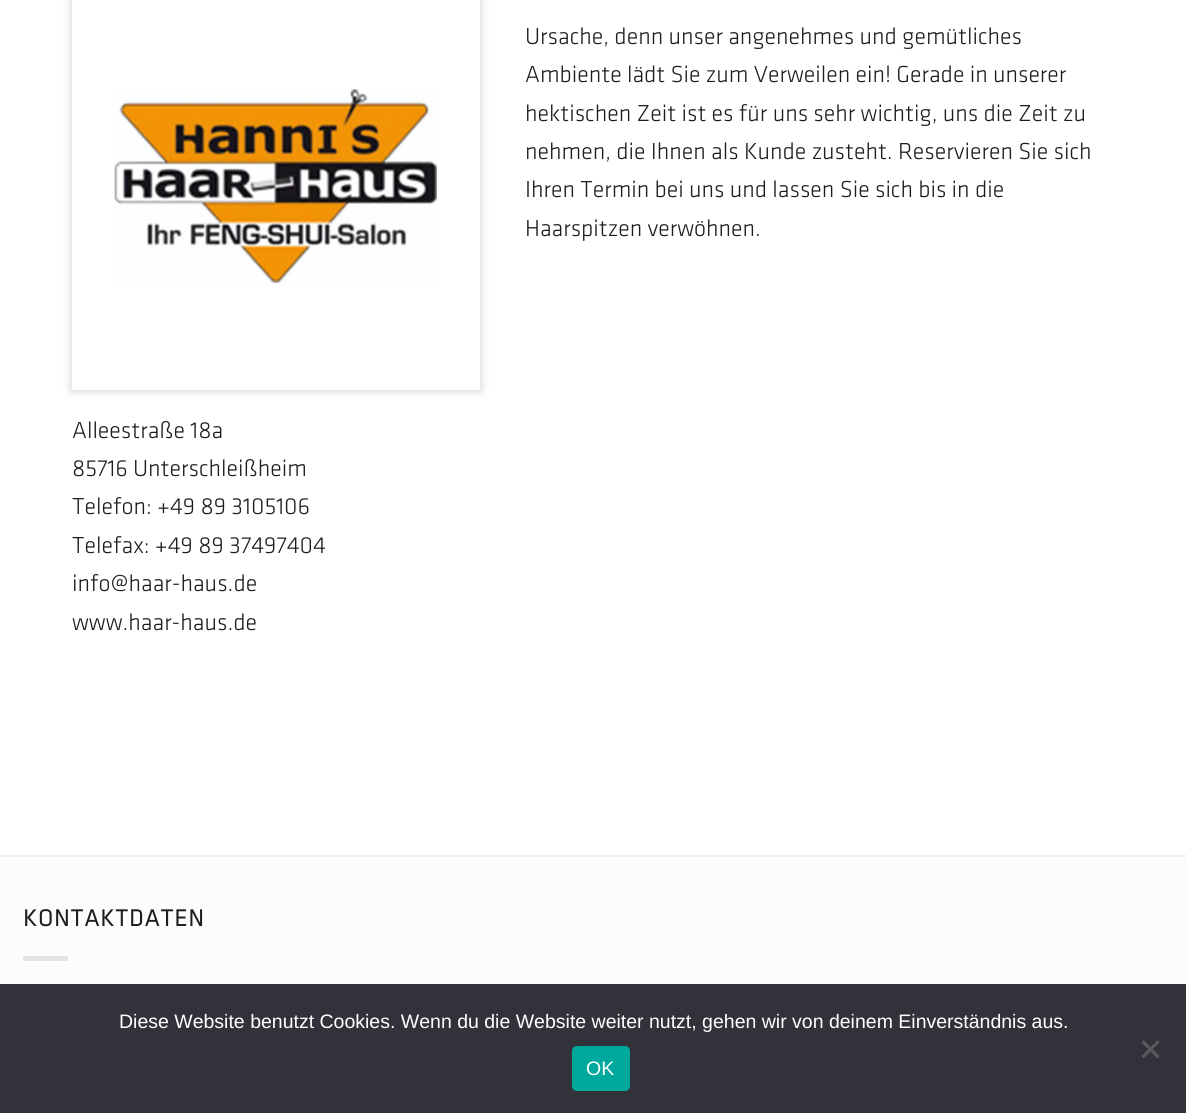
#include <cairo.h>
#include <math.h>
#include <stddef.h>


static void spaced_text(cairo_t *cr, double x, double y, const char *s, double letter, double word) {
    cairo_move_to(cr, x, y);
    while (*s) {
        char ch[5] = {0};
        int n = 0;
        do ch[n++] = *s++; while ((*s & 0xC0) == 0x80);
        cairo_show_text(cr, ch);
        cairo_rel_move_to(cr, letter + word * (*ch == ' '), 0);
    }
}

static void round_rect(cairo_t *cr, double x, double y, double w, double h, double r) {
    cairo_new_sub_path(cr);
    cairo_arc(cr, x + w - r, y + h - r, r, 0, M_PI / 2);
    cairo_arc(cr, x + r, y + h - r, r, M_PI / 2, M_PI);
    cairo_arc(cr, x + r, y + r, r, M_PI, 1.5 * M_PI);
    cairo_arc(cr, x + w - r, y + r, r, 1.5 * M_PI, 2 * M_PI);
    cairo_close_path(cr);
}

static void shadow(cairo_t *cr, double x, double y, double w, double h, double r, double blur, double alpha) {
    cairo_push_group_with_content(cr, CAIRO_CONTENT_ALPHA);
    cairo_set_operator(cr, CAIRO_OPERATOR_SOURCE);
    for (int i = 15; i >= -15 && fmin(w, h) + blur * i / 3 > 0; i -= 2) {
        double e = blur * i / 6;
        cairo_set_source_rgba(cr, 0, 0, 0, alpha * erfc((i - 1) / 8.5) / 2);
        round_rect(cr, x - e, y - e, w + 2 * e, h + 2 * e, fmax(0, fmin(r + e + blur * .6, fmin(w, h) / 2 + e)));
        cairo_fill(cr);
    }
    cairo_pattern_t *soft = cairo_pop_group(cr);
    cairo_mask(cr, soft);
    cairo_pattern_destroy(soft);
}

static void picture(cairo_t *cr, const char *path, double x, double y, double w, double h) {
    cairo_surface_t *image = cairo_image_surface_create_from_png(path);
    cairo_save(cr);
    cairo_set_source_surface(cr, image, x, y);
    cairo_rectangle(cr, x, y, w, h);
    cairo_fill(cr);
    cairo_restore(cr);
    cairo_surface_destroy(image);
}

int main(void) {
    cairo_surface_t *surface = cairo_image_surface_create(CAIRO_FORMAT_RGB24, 1186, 1113);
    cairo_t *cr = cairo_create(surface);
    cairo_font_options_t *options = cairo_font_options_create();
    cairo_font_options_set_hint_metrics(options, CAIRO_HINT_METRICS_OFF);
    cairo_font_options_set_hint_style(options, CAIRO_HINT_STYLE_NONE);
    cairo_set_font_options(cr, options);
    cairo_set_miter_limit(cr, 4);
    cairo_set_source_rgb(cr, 1, 1, 1);
    cairo_paint(cr);
    cairo_select_font_face(cr, "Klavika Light", CAIRO_FONT_SLANT_NORMAL, CAIRO_FONT_WEIGHT_NORMAL);
    cairo_set_font_size(cr, 24);
    cairo_set_source_rgb(cr, 0.114, 0.114, 0.106);
    cairo_move_to(cr, 525, 44);
    cairo_show_text(cr, "Ursache, denn unser angenehmes und gemütliches");
    cairo_move_to(cr, 525, 82);
    cairo_show_text(cr, "Ambiente lädt Sie zum Verweilen ein! Gerade in unserer");
    cairo_move_to(cr, 525, 121);
    cairo_show_text(cr, "hektischen Zeit ist es für uns sehr wichtig, uns die Zeit zu");
    cairo_move_to(cr, 525, 159);
    cairo_show_text(cr, "nehmen, die Ihnen als Kunde zusteht. Reservieren Sie sich");
    cairo_move_to(cr, 525, 197);
    cairo_show_text(cr, "Ihren Termin bei uns und lassen Sie sich bis in die");
    cairo_move_to(cr, 525, 236);
    cairo_show_text(cr, "Haarspitzen verwöhnen.");
    cairo_save(cr);
    cairo_set_fill_rule(cr, CAIRO_FILL_RULE_EVEN_ODD);
    cairo_new_path(cr);
    cairo_move_to(cr, 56, 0);
    cairo_line_to(cr, 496, 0);
    cairo_line_to(cr, 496, 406);
    cairo_line_to(cr, 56, 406);
    cairo_close_path(cr);
    cairo_move_to(cr, 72, -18);
    cairo_line_to(cr, 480, -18);
    cairo_line_to(cr, 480, 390);
    cairo_line_to(cr, 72, 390);
    cairo_close_path(cr);
    cairo_clip(cr);
    cairo_set_source_rgb(cr, 0, 0, 0);
    shadow(cr, 72, -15, 408, 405, 0, 5, 0.2);
    cairo_restore(cr);
    picture(cr, "img1.png", 114, 88, 323, 197);
    cairo_move_to(cr, 72, 438);
    cairo_show_text(cr, "Alleestraße 18a");
    cairo_move_to(cr, 72, 476);
    cairo_show_text(cr, "85716 Unterschleißheim");
    cairo_move_to(cr, 72, 514);
    cairo_show_text(cr, "Telefon: +49 89 3105106");
    cairo_move_to(cr, 72, 553);
    cairo_show_text(cr, "Telefax: +49 89 37497404");
    cairo_move_to(cr, 72, 591);
    cairo_show_text(cr, "info@haar-haus.de");
    cairo_move_to(cr, 72, 630);
    cairo_show_text(cr, "www.haar-haus.de");
    cairo_set_source_rgb(cr, 0.988, 0.988, 0.988);
    cairo_rectangle(cr, 0, 857, 1186, 127);
    cairo_fill(cr);
    cairo_set_source_rgb(cr, 0.937, 0.937, 0.937);
    cairo_rectangle(cr, 0, 855, 1186, 2);
    cairo_fill(cr);
    cairo_select_font_face(cr, "Klavika", CAIRO_FONT_SLANT_NORMAL, CAIRO_FONT_WEIGHT_BOLD);
    cairo_set_source_rgb(cr, 0.114, 0.114, 0.106);
    spaced_text(cr, 23, 926, "KONTAKTDATEN", 1.25, 0);
    cairo_set_source_rgb(cr, 0.89, 0.89, 0.89);
    cairo_rectangle(cr, 23, 956, 45, 5);
    cairo_fill(cr);
    cairo_set_source_rgb(cr, 0.196, 0.196, 0.227);
    cairo_rectangle(cr, 0, 984, 1186, 129);
    cairo_fill(cr);
    cairo_select_font_face(cr, "Liberation Sans", CAIRO_FONT_SLANT_NORMAL, CAIRO_FONT_WEIGHT_NORMAL);
    cairo_set_font_size(cr, 19.5);
    cairo_set_source_rgb(cr, 1, 1, 1);
    cairo_move_to(cr, 119, 1028);
    cairo_show_text(cr, "Diese Website benutzt Cookies. Wenn du die Website weiter nutzt, gehen wir von deinem Einverständnis aus.");
    cairo_set_source_rgb(cr, 0.349, 0.349, 0.365);
    cairo_new_path(cr);
    cairo_move_to(cr, 1157.5, 1040);
    cairo_line_to(cr, 1159.5, 1042.5);
    cairo_line_to(cr, 1143.5, 1058.5);
    cairo_line_to(cr, 1141.5, 1056);
    cairo_close_path(cr);
    cairo_fill(cr);
    cairo_new_path(cr);
    cairo_move_to(cr, 1141.5, 1042.5);
    cairo_line_to(cr, 1143.5, 1040);
    cairo_line_to(cr, 1159.5, 1056);
    cairo_line_to(cr, 1157.5, 1058.5);
    cairo_close_path(cr);
    cairo_fill(cr);
    cairo_set_source_rgb(cr, 0, 0.663, 0.616);
    round_rect(cr, 572, 1046, 58, 45, 5);
    cairo_fill(cr);
    cairo_set_source_rgb(cr, 1, 1, 1);
    cairo_move_to(cr, 586, 1075);
    cairo_show_text(cr, "OK");
    cairo_surface_write_to_png(surface, "page.png");
    cairo_font_options_destroy(options);
    cairo_destroy(cr);
    cairo_surface_destroy(surface);
    return 0;
}
